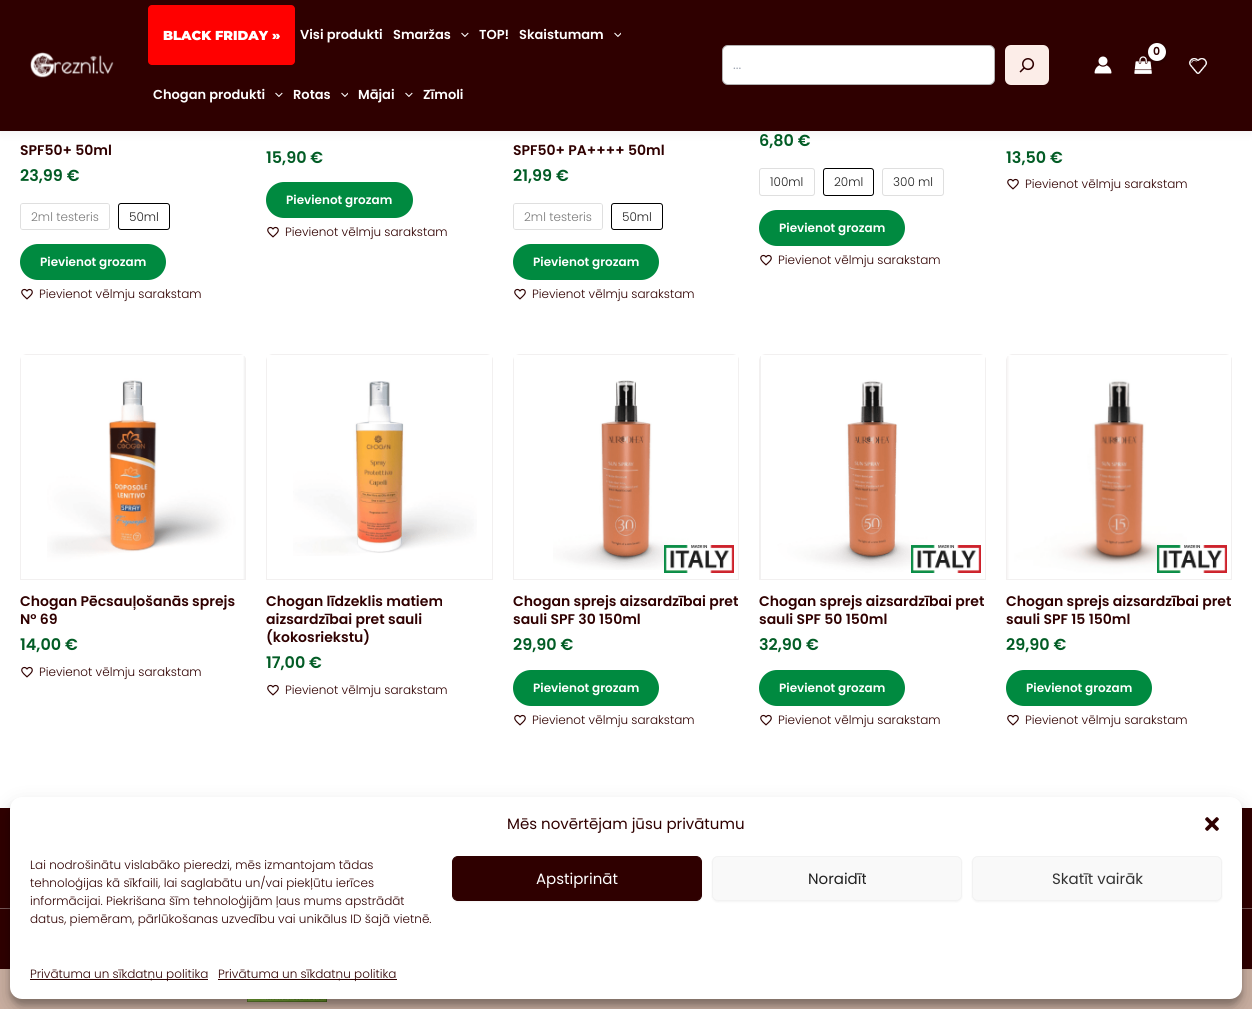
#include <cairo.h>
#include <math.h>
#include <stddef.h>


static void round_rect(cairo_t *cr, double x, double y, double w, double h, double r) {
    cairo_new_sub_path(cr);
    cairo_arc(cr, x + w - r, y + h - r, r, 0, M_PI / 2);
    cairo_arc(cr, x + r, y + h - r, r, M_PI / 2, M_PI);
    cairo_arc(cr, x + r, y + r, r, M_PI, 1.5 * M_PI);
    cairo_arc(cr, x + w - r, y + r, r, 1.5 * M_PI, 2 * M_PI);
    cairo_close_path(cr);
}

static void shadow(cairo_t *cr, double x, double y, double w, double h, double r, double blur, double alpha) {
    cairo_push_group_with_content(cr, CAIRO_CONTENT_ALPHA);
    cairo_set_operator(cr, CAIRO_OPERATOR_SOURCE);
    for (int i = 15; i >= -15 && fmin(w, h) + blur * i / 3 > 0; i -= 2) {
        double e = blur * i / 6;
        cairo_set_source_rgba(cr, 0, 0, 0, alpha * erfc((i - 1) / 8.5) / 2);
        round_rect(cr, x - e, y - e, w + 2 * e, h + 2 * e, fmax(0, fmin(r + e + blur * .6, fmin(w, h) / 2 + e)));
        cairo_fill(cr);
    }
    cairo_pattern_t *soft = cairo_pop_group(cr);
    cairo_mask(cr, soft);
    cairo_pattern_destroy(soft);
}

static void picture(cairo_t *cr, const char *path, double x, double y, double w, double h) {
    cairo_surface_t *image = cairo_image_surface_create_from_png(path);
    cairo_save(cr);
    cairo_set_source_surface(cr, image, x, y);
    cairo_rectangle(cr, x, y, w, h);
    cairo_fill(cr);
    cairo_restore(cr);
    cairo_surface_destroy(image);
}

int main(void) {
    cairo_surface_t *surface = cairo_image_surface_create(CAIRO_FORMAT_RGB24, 1252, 1009);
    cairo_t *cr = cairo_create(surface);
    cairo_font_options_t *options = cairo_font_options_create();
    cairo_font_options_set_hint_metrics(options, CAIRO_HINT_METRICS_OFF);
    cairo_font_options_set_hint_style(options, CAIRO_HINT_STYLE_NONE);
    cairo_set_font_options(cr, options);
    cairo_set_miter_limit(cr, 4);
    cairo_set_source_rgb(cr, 1, 1, 1);
    cairo_paint(cr);
    cairo_set_source_rgb(cr, 0.141, 0.196, 0.259);
    shadow(cr, 0, 2, 1252, 131, 0, 5, 0.07);
    cairo_set_source_rgb(cr, 0.184, 0, 0);
    cairo_rectangle(cr, 0, 0, 1252, 131);
    cairo_fill(cr);
    picture(cr, "img1.png", 30, 52, 84, 26);
    cairo_set_source_rgb(cr, 1, 0, 0);
    round_rect(cr, 148, 5, 147, 60, 4);
    cairo_fill(cr);
    cairo_select_font_face(cr, "Montserrat Black", CAIRO_FONT_SLANT_NORMAL, CAIRO_FONT_WEIGHT_NORMAL);
    cairo_set_font_size(cr, 13);
    cairo_set_source_rgb(cr, 1, 1, 1);
    cairo_move_to(cr, 163, 40);
    cairo_show_text(cr, "BLACK FRIDAY »");
    cairo_select_font_face(cr, "Poppins SemiBold", CAIRO_FONT_SLANT_NORMAL, CAIRO_FONT_WEIGHT_NORMAL);
    cairo_move_to(cr, 300, 39);
    cairo_show_text(cr, "Visi produkti");
    cairo_move_to(cr, 393, 39);
    cairo_show_text(cr, "Smaržas");
    picture(cr, "img2.png", 461, 32, 8, 5);
    cairo_move_to(cr, 479, 39);
    cairo_show_text(cr, "TOP!");
    cairo_move_to(cr, 519, 39);
    cairo_show_text(cr, "Skaistumam");
    picture(cr, "img3.png", 614, 32, 7, 5);
    cairo_move_to(cr, 153, 99);
    cairo_show_text(cr, "Chogan produkti");
    picture(cr, "img2.png", 275, 92, 8, 5);
    cairo_move_to(cr, 293, 99);
    cairo_show_text(cr, "Rotas");
    picture(cr, "img3.png", 341, 92, 7, 5);
    cairo_move_to(cr, 358, 99);
    cairo_show_text(cr, "Mājai");
    picture(cr, "img2.png", 405, 92, 8, 5);
    cairo_move_to(cr, 423, 99);
    cairo_show_text(cr, "Zīmoli");
    picture(cr, "img4.png", 1134, 56, 18, 18);
    cairo_set_source_rgb(cr, 0, 0, 0);
    shadow(cr, 1149, 44, 18, 18, 9, 1.5, 0.3);
    cairo_set_source_rgb(cr, 1, 1, 1);
    cairo_arc(cr, 1157, 52, 9, 0, 2 * M_PI);
    cairo_fill(cr);
    cairo_set_font_size(cr, 11);
    cairo_set_source_rgb(cr, 0.184, 0, 0);
    cairo_move_to(cr, 1153, 55);
    cairo_show_text(cr, "0");
    cairo_set_source_rgb(cr, 1, 1, 1);
    round_rect(cr, 722, 45, 273, 40, 6);
    cairo_fill(cr);
    round_rect(cr, 722.5, 45.5, 272, 39, 5.5);
    cairo_set_source_rgba(cr, 0, 0, 0, 0.3);
    cairo_set_line_width(cr, 1);
    cairo_stroke(cr);
    cairo_select_font_face(cr, "Poppins", CAIRO_FONT_SLANT_NORMAL, CAIRO_FONT_WEIGHT_NORMAL);
    cairo_set_font_size(cr, 13);
    cairo_set_source_rgb(cr, 0.612, 0.639, 0.686);
    cairo_move_to(cr, 733, 69);
    cairo_show_text(cr, "...");
    cairo_set_source_rgb(cr, 0.988, 0.929, 0.91);
    round_rect(cr, 1005, 45, 44, 40, 6);
    cairo_fill(cr);
    picture(cr, "img5.png", 1019, 58, 16, 15);
    picture(cr, "img6.png", 1094, 56, 18, 18);
    picture(cr, "img7.png", 1188, 58, 20, 16);
    cairo_select_font_face(cr, "Poppins SemiBold", CAIRO_FONT_SLANT_NORMAL, CAIRO_FONT_WEIGHT_NORMAL);
    cairo_set_font_size(cr, 14);
    cairo_set_source_rgb(cr, 0.184, 0, 0);
    cairo_move_to(cr, 20, 155);
    cairo_show_text(cr, "SPF50+ 50ml");
    cairo_set_font_size(cr, 16);
    cairo_set_source_rgb(cr, 0.008, 0.361, 0.145);
    cairo_move_to(cr, 20, 181);
    cairo_show_text(cr, "23,99 €");
    round_rect(cr, 20.5, 203.5, 89, 26, 2.5);
    cairo_set_source_rgb(cr, 0.875, 0.875, 0.875);
    cairo_stroke(cr);
    cairo_select_font_face(cr, "Poppins Light", CAIRO_FONT_SLANT_NORMAL, CAIRO_FONT_WEIGHT_NORMAL);
    cairo_set_font_size(cr, 12);
    cairo_set_source_rgb(cr, 0.129, 0.129, 0.129);
    cairo_move_to(cr, 31, 221);
    cairo_show_text(cr, "2ml testeris");
    cairo_set_source_rgba(cr, 1, 1, 1, 0.4);
    cairo_rectangle(cr, 21, 204, 88, 25);
    cairo_fill(cr);
    round_rect(cr, 118.5, 203.5, 51, 26, 2.5);
    cairo_set_source_rgb(cr, 0, 0, 0);
    cairo_stroke(cr);
    cairo_set_source_rgb(cr, 0.129, 0.129, 0.129);
    cairo_move_to(cr, 129, 221);
    cairo_show_text(cr, "50ml");
    cairo_set_source_rgb(cr, 0, 0.541, 0.251);
    round_rect(cr, 20, 244, 146, 36, 18);
    cairo_fill(cr);
    cairo_select_font_face(cr, "Poppins SemiBold", CAIRO_FONT_SLANT_NORMAL, CAIRO_FONT_WEIGHT_NORMAL);
    cairo_set_source_rgb(cr, 1, 1, 1);
    cairo_move_to(cr, 40, 266);
    cairo_show_text(cr, "Pievienot grozam");
    picture(cr, "img8.png", 21, 288, 12, 12);
    cairo_select_font_face(cr, "Poppins Light", CAIRO_FONT_SLANT_NORMAL, CAIRO_FONT_WEIGHT_NORMAL);
    cairo_set_source_rgb(cr, 0.184, 0, 0);
    cairo_move_to(cr, 39, 298);
    cairo_show_text(cr, "Pievienot vēlmju sarakstam");
    cairo_select_font_face(cr, "Poppins SemiBold", CAIRO_FONT_SLANT_NORMAL, CAIRO_FONT_WEIGHT_NORMAL);
    cairo_set_font_size(cr, 16);
    cairo_set_source_rgb(cr, 0.008, 0.361, 0.145);
    cairo_move_to(cr, 266, 163);
    cairo_show_text(cr, "15,90 €");
    cairo_set_source_rgb(cr, 0, 0.541, 0.251);
    round_rect(cr, 266, 182, 147, 36, 18);
    cairo_fill(cr);
    cairo_set_font_size(cr, 12);
    cairo_set_source_rgb(cr, 1, 1, 1);
    cairo_move_to(cr, 286, 204);
    cairo_show_text(cr, "Pievienot grozam");
    picture(cr, "img8.png", 267, 226, 12, 12);
    cairo_select_font_face(cr, "Poppins Light", CAIRO_FONT_SLANT_NORMAL, CAIRO_FONT_WEIGHT_NORMAL);
    cairo_set_source_rgb(cr, 0.184, 0, 0);
    cairo_move_to(cr, 285, 236);
    cairo_show_text(cr, "Pievienot vēlmju sarakstam");
    cairo_select_font_face(cr, "Poppins SemiBold", CAIRO_FONT_SLANT_NORMAL, CAIRO_FONT_WEIGHT_NORMAL);
    cairo_set_font_size(cr, 14);
    cairo_move_to(cr, 513, 155);
    cairo_show_text(cr, "SPF50+ PA++++ 50ml");
    cairo_set_font_size(cr, 16);
    cairo_set_source_rgb(cr, 0.008, 0.361, 0.145);
    cairo_move_to(cr, 513, 181);
    cairo_show_text(cr, "21,99 €");
    round_rect(cr, 513.5, 203.5, 89, 26, 2.5);
    cairo_set_source_rgb(cr, 0.875, 0.875, 0.875);
    cairo_stroke(cr);
    cairo_select_font_face(cr, "Poppins Light", CAIRO_FONT_SLANT_NORMAL, CAIRO_FONT_WEIGHT_NORMAL);
    cairo_set_font_size(cr, 12);
    cairo_set_source_rgb(cr, 0.129, 0.129, 0.129);
    cairo_move_to(cr, 524, 221);
    cairo_show_text(cr, "2ml testeris");
    cairo_set_source_rgba(cr, 1, 1, 1, 0.4);
    cairo_rectangle(cr, 514, 204, 88, 25);
    cairo_fill(cr);
    round_rect(cr, 611.5, 203.5, 51, 26, 2.5);
    cairo_set_source_rgb(cr, 0, 0, 0);
    cairo_stroke(cr);
    cairo_set_source_rgb(cr, 0.129, 0.129, 0.129);
    cairo_move_to(cr, 622, 221);
    cairo_show_text(cr, "50ml");
    cairo_set_source_rgb(cr, 0, 0.541, 0.251);
    round_rect(cr, 513, 244, 146, 36, 18);
    cairo_fill(cr);
    cairo_select_font_face(cr, "Poppins SemiBold", CAIRO_FONT_SLANT_NORMAL, CAIRO_FONT_WEIGHT_NORMAL);
    cairo_set_source_rgb(cr, 1, 1, 1);
    cairo_move_to(cr, 533, 266);
    cairo_show_text(cr, "Pievienot grozam");
    picture(cr, "img8.png", 514, 288, 12, 12);
    cairo_select_font_face(cr, "Poppins Light", CAIRO_FONT_SLANT_NORMAL, CAIRO_FONT_WEIGHT_NORMAL);
    cairo_set_source_rgb(cr, 0.184, 0, 0);
    cairo_move_to(cr, 532, 298);
    cairo_show_text(cr, "Pievienot vēlmju sarakstam");
    cairo_select_font_face(cr, "Poppins SemiBold", CAIRO_FONT_SLANT_NORMAL, CAIRO_FONT_WEIGHT_NORMAL);
    cairo_set_font_size(cr, 16);
    cairo_set_source_rgb(cr, 0.008, 0.361, 0.145);
    cairo_move_to(cr, 759, 146);
    cairo_show_text(cr, "6,80 €");
    round_rect(cr, 759.5, 168.5, 55, 27, 2.5);
    cairo_set_source_rgb(cr, 0.875, 0.875, 0.875);
    cairo_stroke(cr);
    cairo_select_font_face(cr, "Poppins Light", CAIRO_FONT_SLANT_NORMAL, CAIRO_FONT_WEIGHT_NORMAL);
    cairo_set_font_size(cr, 12);
    cairo_set_source_rgb(cr, 0.129, 0.129, 0.129);
    cairo_move_to(cr, 770, 186);
    cairo_show_text(cr, "100ml");
    round_rect(cr, 823.5, 168.5, 50, 27, 2.5);
    cairo_set_source_rgb(cr, 0, 0, 0);
    cairo_stroke(cr);
    cairo_set_source_rgb(cr, 0.129, 0.129, 0.129);
    cairo_move_to(cr, 834, 186);
    cairo_show_text(cr, "20ml");
    round_rect(cr, 882.5, 168.5, 61, 27, 2.5);
    cairo_set_source_rgb(cr, 0.875, 0.875, 0.875);
    cairo_stroke(cr);
    cairo_set_source_rgb(cr, 0.129, 0.129, 0.129);
    cairo_move_to(cr, 893, 186);
    cairo_show_text(cr, "300 ml");
    cairo_set_source_rgb(cr, 0, 0.541, 0.251);
    round_rect(cr, 759, 210, 146, 36, 18);
    cairo_fill(cr);
    cairo_select_font_face(cr, "Poppins SemiBold", CAIRO_FONT_SLANT_NORMAL, CAIRO_FONT_WEIGHT_NORMAL);
    cairo_set_source_rgb(cr, 1, 1, 1);
    cairo_move_to(cr, 779, 232);
    cairo_show_text(cr, "Pievienot grozam");
    picture(cr, "img8.png", 760, 254, 12, 12);
    cairo_select_font_face(cr, "Poppins Light", CAIRO_FONT_SLANT_NORMAL, CAIRO_FONT_WEIGHT_NORMAL);
    cairo_set_source_rgb(cr, 0.184, 0, 0);
    cairo_move_to(cr, 778, 264);
    cairo_show_text(cr, "Pievienot vēlmju sarakstam");
    cairo_select_font_face(cr, "Poppins SemiBold", CAIRO_FONT_SLANT_NORMAL, CAIRO_FONT_WEIGHT_NORMAL);
    cairo_set_font_size(cr, 16);
    cairo_set_source_rgb(cr, 0.008, 0.361, 0.145);
    cairo_move_to(cr, 1006, 163);
    cairo_show_text(cr, "13,50 €");
    picture(cr, "img8.png", 1007, 178, 12, 12);
    cairo_select_font_face(cr, "Poppins Light", CAIRO_FONT_SLANT_NORMAL, CAIRO_FONT_WEIGHT_NORMAL);
    cairo_set_font_size(cr, 12);
    cairo_set_source_rgb(cr, 0.184, 0, 0);
    cairo_move_to(cr, 1025, 188);
    cairo_show_text(cr, "Pievienot vēlmju sarakstam");
    cairo_set_source_rgb(cr, 0.949, 0.941, 0.941);
    cairo_set_fill_rule(cr, CAIRO_FILL_RULE_EVEN_ODD);
    cairo_new_path(cr);
    cairo_move_to(cr, 20, 360);
    cairo_line_to(cr, 20, 580);
    cairo_line_to(cr, 246, 580);
    cairo_line_to(cr, 246, 360);
    cairo_curve_to(cr, 246, 359, 246, 358, 245, 357);
    cairo_line_to(cr, 245, 579);
    cairo_line_to(cr, 21, 579);
    cairo_line_to(cr, 21, 357);
    cairo_close_path(cr);
    cairo_move_to(cr, 26, 354);
    cairo_line_to(cr, 23, 355);
    cairo_line_to(cr, 243, 355);
    cairo_line_to(cr, 240, 354);
    cairo_close_path(cr);
    cairo_fill(cr);
    picture(cr, "img9.png", 47, 356, 198, 223);
    cairo_select_font_face(cr, "Poppins SemiBold", CAIRO_FONT_SLANT_NORMAL, CAIRO_FONT_WEIGHT_NORMAL);
    cairo_set_font_size(cr, 14);
    cairo_set_source_rgb(cr, 0.184, 0, 0);
    cairo_move_to(cr, 20, 606);
    cairo_show_text(cr, "Chogan Pēcsauļošanās sprejs");
    cairo_move_to(cr, 20, 624);
    cairo_show_text(cr, "N° 69");
    cairo_set_font_size(cr, 16);
    cairo_set_source_rgb(cr, 0.008, 0.361, 0.145);
    cairo_move_to(cr, 20, 650);
    cairo_show_text(cr, "14,00 €");
    picture(cr, "img8.png", 21, 666, 12, 12);
    cairo_select_font_face(cr, "Poppins Light", CAIRO_FONT_SLANT_NORMAL, CAIRO_FONT_WEIGHT_NORMAL);
    cairo_set_font_size(cr, 12);
    cairo_set_source_rgb(cr, 0.184, 0, 0);
    cairo_move_to(cr, 39, 676);
    cairo_show_text(cr, "Pievienot vēlmju sarakstam");
    cairo_set_source_rgb(cr, 0.949, 0.941, 0.941);
    cairo_new_path(cr);
    cairo_move_to(cr, 266, 360);
    cairo_line_to(cr, 266, 580);
    cairo_line_to(cr, 493, 580);
    cairo_line_to(cr, 493, 360);
    cairo_curve_to(cr, 493, 359, 493, 358, 492, 357);
    cairo_line_to(cr, 492, 579);
    cairo_line_to(cr, 267, 579);
    cairo_line_to(cr, 267, 357);
    cairo_close_path(cr);
    cairo_move_to(cr, 272, 354);
    cairo_line_to(cr, 269, 355);
    cairo_line_to(cr, 490, 355);
    cairo_line_to(cr, 487, 354);
    cairo_close_path(cr);
    cairo_fill(cr);
    picture(cr, "img10.png", 293, 381, 184, 175);
    cairo_select_font_face(cr, "Poppins SemiBold", CAIRO_FONT_SLANT_NORMAL, CAIRO_FONT_WEIGHT_NORMAL);
    cairo_set_font_size(cr, 14);
    cairo_set_source_rgb(cr, 0.184, 0, 0);
    cairo_move_to(cr, 266, 606);
    cairo_show_text(cr, "Chogan līdzeklis matiem");
    cairo_move_to(cr, 266, 624);
    cairo_show_text(cr, "aizsardzībai pret sauli");
    cairo_move_to(cr, 266, 642);
    cairo_show_text(cr, "(kokosriekstu)");
    cairo_set_font_size(cr, 16);
    cairo_set_source_rgb(cr, 0.008, 0.361, 0.145);
    cairo_move_to(cr, 266, 668);
    cairo_show_text(cr, "17,00 €");
    picture(cr, "img8.png", 267, 684, 12, 12);
    cairo_select_font_face(cr, "Poppins Light", CAIRO_FONT_SLANT_NORMAL, CAIRO_FONT_WEIGHT_NORMAL);
    cairo_set_font_size(cr, 12);
    cairo_set_source_rgb(cr, 0.184, 0, 0);
    cairo_move_to(cr, 285, 694);
    cairo_show_text(cr, "Pievienot vēlmju sarakstam");
    cairo_set_source_rgb(cr, 0.949, 0.941, 0.941);
    cairo_new_path(cr);
    cairo_move_to(cr, 513, 360);
    cairo_line_to(cr, 513, 580);
    cairo_line_to(cr, 739, 580);
    cairo_line_to(cr, 739, 360);
    cairo_curve_to(cr, 739, 359, 739, 358, 738, 357);
    cairo_line_to(cr, 738, 579);
    cairo_line_to(cr, 514, 579);
    cairo_line_to(cr, 514, 357);
    cairo_close_path(cr);
    cairo_move_to(cr, 519, 354);
    cairo_line_to(cr, 516, 355);
    cairo_line_to(cr, 736, 355);
    cairo_line_to(cr, 733, 354);
    cairo_close_path(cr);
    cairo_fill(cr);
    picture(cr, "img11.png", 553, 380, 138, 190);
    picture(cr, "img12.png", 664, 545, 70, 28);
    cairo_select_font_face(cr, "Poppins SemiBold", CAIRO_FONT_SLANT_NORMAL, CAIRO_FONT_WEIGHT_NORMAL);
    cairo_set_font_size(cr, 14);
    cairo_set_source_rgb(cr, 0.184, 0, 0);
    cairo_move_to(cr, 513, 606);
    cairo_show_text(cr, "Chogan sprejs aizsardzībai pret");
    cairo_move_to(cr, 513, 624);
    cairo_show_text(cr, "sauli SPF 30 150ml");
    cairo_set_font_size(cr, 16);
    cairo_set_source_rgb(cr, 0.008, 0.361, 0.145);
    cairo_move_to(cr, 513, 650);
    cairo_show_text(cr, "29,90 €");
    cairo_set_source_rgb(cr, 0, 0.541, 0.251);
    round_rect(cr, 513, 670, 146, 36, 18);
    cairo_fill(cr);
    cairo_set_font_size(cr, 12);
    cairo_set_source_rgb(cr, 1, 1, 1);
    cairo_move_to(cr, 533, 692);
    cairo_show_text(cr, "Pievienot grozam");
    picture(cr, "img8.png", 514, 714, 12, 12);
    cairo_select_font_face(cr, "Poppins Light", CAIRO_FONT_SLANT_NORMAL, CAIRO_FONT_WEIGHT_NORMAL);
    cairo_set_source_rgb(cr, 0.184, 0, 0);
    cairo_move_to(cr, 532, 724);
    cairo_show_text(cr, "Pievienot vēlmju sarakstam");
    cairo_set_source_rgb(cr, 0.949, 0.941, 0.941);
    cairo_new_path(cr);
    cairo_move_to(cr, 759, 360);
    cairo_line_to(cr, 759, 580);
    cairo_line_to(cr, 986, 580);
    cairo_line_to(cr, 986, 360);
    cairo_curve_to(cr, 986, 359, 986, 358, 985, 357);
    cairo_line_to(cr, 985, 579);
    cairo_line_to(cr, 760, 579);
    cairo_line_to(cr, 760, 357);
    cairo_close_path(cr);
    cairo_move_to(cr, 765, 354);
    cairo_line_to(cr, 762, 355);
    cairo_line_to(cr, 983, 355);
    cairo_line_to(cr, 980, 354);
    cairo_close_path(cr);
    cairo_fill(cr);
    picture(cr, "img13.png", 760, 356, 178, 223);
    picture(cr, "img12.png", 911, 545, 70, 28);
    cairo_select_font_face(cr, "Poppins SemiBold", CAIRO_FONT_SLANT_NORMAL, CAIRO_FONT_WEIGHT_NORMAL);
    cairo_set_font_size(cr, 14);
    cairo_set_source_rgb(cr, 0.184, 0, 0);
    cairo_move_to(cr, 759, 606);
    cairo_show_text(cr, "Chogan sprejs aizsardzībai pret");
    cairo_move_to(cr, 759, 624);
    cairo_show_text(cr, "sauli SPF 50 150ml");
    cairo_set_font_size(cr, 16);
    cairo_set_source_rgb(cr, 0.008, 0.361, 0.145);
    cairo_move_to(cr, 759, 650);
    cairo_show_text(cr, "32,90 €");
    cairo_set_source_rgb(cr, 0, 0.541, 0.251);
    round_rect(cr, 759, 670, 146, 36, 18);
    cairo_fill(cr);
    cairo_set_font_size(cr, 12);
    cairo_set_source_rgb(cr, 1, 1, 1);
    cairo_move_to(cr, 779, 692);
    cairo_show_text(cr, "Pievienot grozam");
    picture(cr, "img8.png", 760, 714, 12, 12);
    cairo_select_font_face(cr, "Poppins Light", CAIRO_FONT_SLANT_NORMAL, CAIRO_FONT_WEIGHT_NORMAL);
    cairo_set_source_rgb(cr, 0.184, 0, 0);
    cairo_move_to(cr, 778, 724);
    cairo_show_text(cr, "Pievienot vēlmju sarakstam");
    cairo_set_source_rgb(cr, 0.949, 0.941, 0.941);
    cairo_new_path(cr);
    cairo_move_to(cr, 1006, 360);
    cairo_line_to(cr, 1006, 580);
    cairo_line_to(cr, 1232, 580);
    cairo_line_to(cr, 1232, 360);
    cairo_curve_to(cr, 1232, 359, 1232, 358, 1231, 357);
    cairo_line_to(cr, 1231, 579);
    cairo_line_to(cr, 1007, 579);
    cairo_line_to(cr, 1007, 357);
    cairo_close_path(cr);
    cairo_move_to(cr, 1012, 354);
    cairo_line_to(cr, 1009, 355);
    cairo_line_to(cr, 1229, 355);
    cairo_line_to(cr, 1226, 354);
    cairo_close_path(cr);
    cairo_fill(cr);
    picture(cr, "img14.png", 1007, 356, 180, 223);
    picture(cr, "img15.png", 1157, 545, 70, 28);
    cairo_select_font_face(cr, "Poppins SemiBold", CAIRO_FONT_SLANT_NORMAL, CAIRO_FONT_WEIGHT_NORMAL);
    cairo_set_font_size(cr, 14);
    cairo_set_source_rgb(cr, 0.184, 0, 0);
    cairo_move_to(cr, 1006, 606);
    cairo_show_text(cr, "Chogan sprejs aizsardzībai pret");
    cairo_move_to(cr, 1006, 624);
    cairo_show_text(cr, "sauli SPF 15 150ml");
    cairo_set_font_size(cr, 16);
    cairo_set_source_rgb(cr, 0.008, 0.361, 0.145);
    cairo_move_to(cr, 1006, 650);
    cairo_show_text(cr, "29,90 €");
    cairo_set_source_rgb(cr, 0, 0.541, 0.251);
    round_rect(cr, 1006, 670, 146, 36, 18);
    cairo_fill(cr);
    cairo_set_font_size(cr, 12);
    cairo_set_source_rgb(cr, 1, 1, 1);
    cairo_move_to(cr, 1026, 692);
    cairo_show_text(cr, "Pievienot grozam");
    picture(cr, "img8.png", 1007, 714, 12, 12);
    cairo_select_font_face(cr, "Poppins Light", CAIRO_FONT_SLANT_NORMAL, CAIRO_FONT_WEIGHT_NORMAL);
    cairo_set_source_rgb(cr, 0.184, 0, 0);
    cairo_move_to(cr, 1025, 724);
    cairo_show_text(cr, "Pievienot vēlmju sarakstam");
    cairo_rectangle(cr, 0, 808, 1252, 100);
    cairo_fill(cr);
    cairo_rectangle(cr, 0, 909, 1252, 60);
    cairo_fill(cr);
    cairo_set_source_rgb(cr, 0.463, 0.341, 0.341);
    cairo_rectangle(cr, 0, 908, 1252, 1);
    cairo_fill(cr);
    cairo_set_source_rgb(cr, 0.792, 0.686, 0.631);
    cairo_rectangle(cr, 0, 969, 1252, 40);
    cairo_fill(cr);
    picture(cr, "img16.png", 247, 999, 80, 3);
    cairo_set_source_rgb(cr, 0, 0, 0);
    shadow(cr, 10, 803, 1232, 202, 12, 3, 0.23);
    shadow(cr, 10, 807, 1232, 202, 12, 10, 0.19);
    cairo_set_source_rgb(cr, 1, 1, 1);
    round_rect(cr, 10, 797, 1232, 202, 12);
    cairo_fill(cr);
    cairo_select_font_face(cr, "Poppins", CAIRO_FONT_SLANT_NORMAL, CAIRO_FONT_WEIGHT_NORMAL);
    cairo_set_font_size(cr, 15);
    cairo_set_source_rgb(cr, 0.184, 0, 0);
    cairo_move_to(cr, 507, 829);
    cairo_show_text(cr, "Mēs novērtējam jūsu privātumu");
    picture(cr, "img17.png", 1205, 817, 14, 14);
    cairo_select_font_face(cr, "Poppins Light", CAIRO_FONT_SLANT_NORMAL, CAIRO_FONT_WEIGHT_NORMAL);
    cairo_set_font_size(cr, 12);
    cairo_move_to(cr, 30, 869);
    cairo_show_text(cr, "Lai nodrošinātu vislabāko pieredzi, mēs izmantojam tādas");
    cairo_move_to(cr, 30, 887);
    cairo_show_text(cr, "tehnoloģijas kā sīkfaili, lai saglabātu un/vai piekļūtu ierīces");
    cairo_move_to(cr, 30, 905);
    cairo_show_text(cr, "informācijai. Piekrišana šīm tehnoloģijām ļaus mums apstrādāt");
    cairo_move_to(cr, 30, 923);
    cairo_show_text(cr, "datus, piemēram, pārlūkošanas uzvedību vai unikālus ID šajā vietnē.");
    cairo_set_source_rgb(cr, 0, 0, 0);
    shadow(cr, 452, 857, 250, 45, 6, 1, 0.05);
    cairo_set_source_rgb(cr, 0.184, 0, 0);
    round_rect(cr, 452.5, 856.5, 249, 44, 5.5);
    cairo_fill_preserve(cr);
    cairo_stroke(cr);
    cairo_select_font_face(cr, "Poppins", CAIRO_FONT_SLANT_NORMAL, CAIRO_FONT_WEIGHT_NORMAL);
    cairo_set_font_size(cr, 15);
    cairo_set_source_rgb(cr, 1, 1, 1);
    cairo_move_to(cr, 536, 884);
    cairo_show_text(cr, "Apstiprināt");
    cairo_set_source_rgb(cr, 0, 0, 0);
    shadow(cr, 712, 857, 250, 45, 6, 1, 0.05);
    cairo_set_source_rgb(cr, 0.976, 0.976, 0.976);
    round_rect(cr, 712.5, 856.5, 249, 44, 5.5);
    cairo_fill_preserve(cr);
    cairo_set_source_rgb(cr, 0.949, 0.949, 0.949);
    cairo_stroke(cr);
    cairo_set_source_rgb(cr, 0.129, 0.129, 0.129);
    cairo_move_to(cr, 808, 884);
    cairo_show_text(cr, "Noraidīt");
    cairo_set_source_rgb(cr, 0, 0, 0);
    shadow(cr, 972, 857, 250, 45, 6, 1, 0.05);
    cairo_set_source_rgb(cr, 0.976, 0.976, 0.976);
    round_rect(cr, 972.5, 856.5, 249, 44, 5.5);
    cairo_fill_preserve(cr);
    cairo_set_source_rgb(cr, 0.949, 0.949, 0.949);
    cairo_stroke(cr);
    cairo_set_source_rgb(cr, 0.2, 0.2, 0.2);
    cairo_move_to(cr, 1052, 884);
    cairo_show_text(cr, "Skatīt vairāk");
    cairo_set_source_rgb(cr, 0.184, 0, 0);
    cairo_rectangle(cr, 30, 979, 178, 1);
    cairo_fill(cr);
    cairo_select_font_face(cr, "Poppins Light", CAIRO_FONT_SLANT_NORMAL, CAIRO_FONT_WEIGHT_NORMAL);
    cairo_set_font_size(cr, 12);
    cairo_move_to(cr, 30, 978);
    cairo_show_text(cr, "Privātuma un sīkdatņu politika");
    cairo_rectangle(cr, 218, 979, 179, 1);
    cairo_fill(cr);
    cairo_move_to(cr, 218, 978);
    cairo_show_text(cr, "Privātuma un sīkdatņu politika");
    cairo_surface_write_to_png(surface, "page.png");
    cairo_font_options_destroy(options);
    cairo_destroy(cr);
    cairo_surface_destroy(surface);
    return 0;
}
